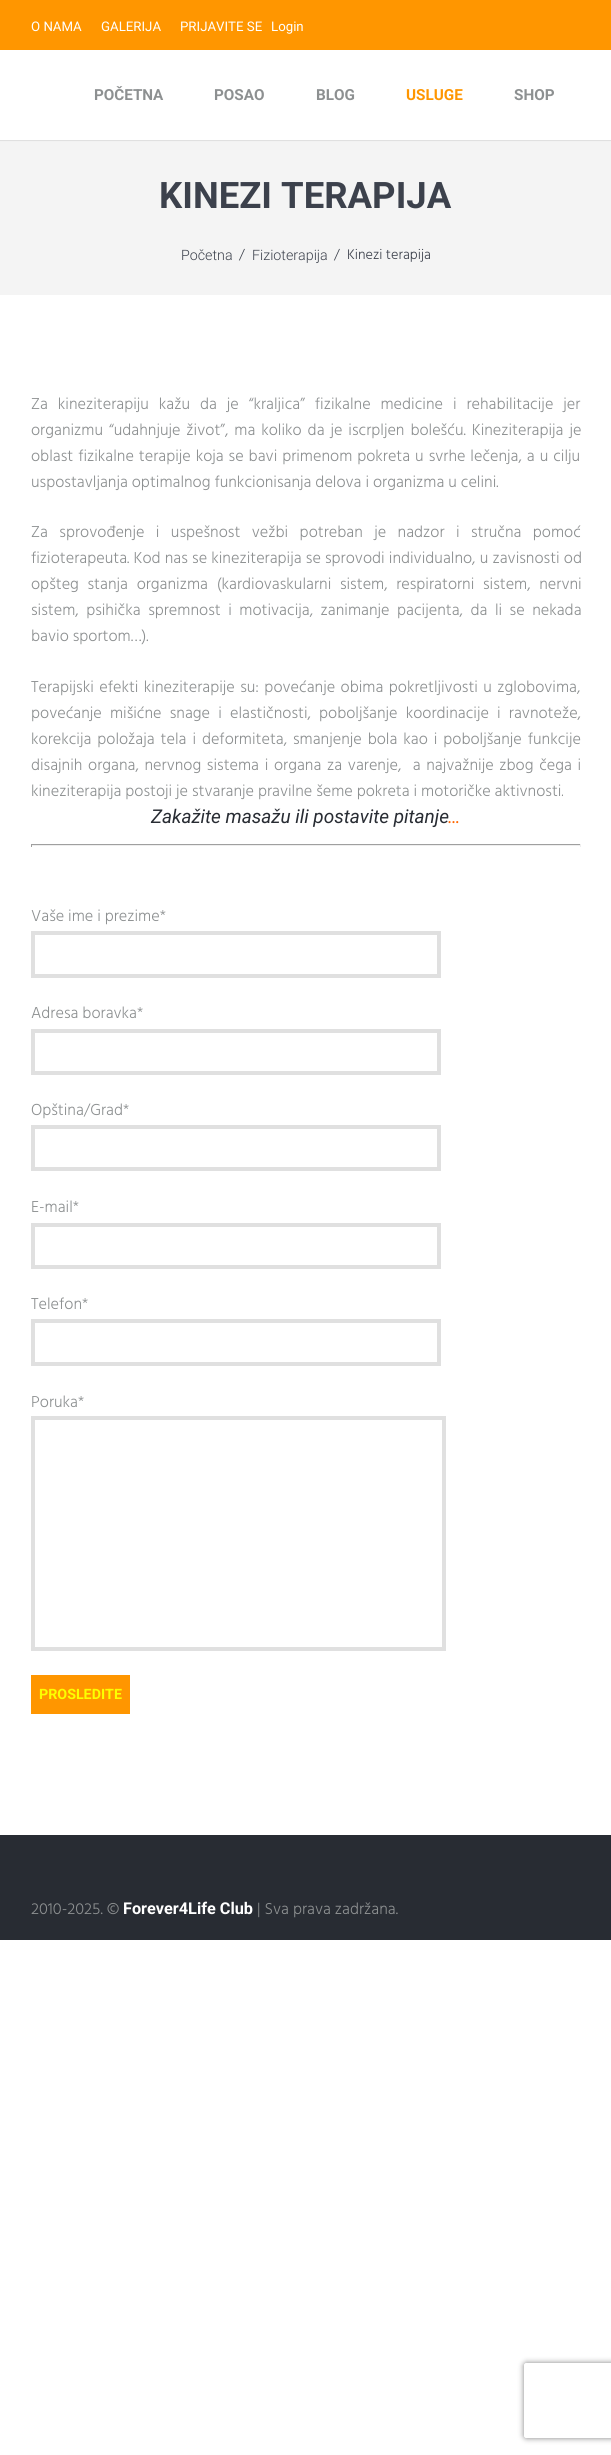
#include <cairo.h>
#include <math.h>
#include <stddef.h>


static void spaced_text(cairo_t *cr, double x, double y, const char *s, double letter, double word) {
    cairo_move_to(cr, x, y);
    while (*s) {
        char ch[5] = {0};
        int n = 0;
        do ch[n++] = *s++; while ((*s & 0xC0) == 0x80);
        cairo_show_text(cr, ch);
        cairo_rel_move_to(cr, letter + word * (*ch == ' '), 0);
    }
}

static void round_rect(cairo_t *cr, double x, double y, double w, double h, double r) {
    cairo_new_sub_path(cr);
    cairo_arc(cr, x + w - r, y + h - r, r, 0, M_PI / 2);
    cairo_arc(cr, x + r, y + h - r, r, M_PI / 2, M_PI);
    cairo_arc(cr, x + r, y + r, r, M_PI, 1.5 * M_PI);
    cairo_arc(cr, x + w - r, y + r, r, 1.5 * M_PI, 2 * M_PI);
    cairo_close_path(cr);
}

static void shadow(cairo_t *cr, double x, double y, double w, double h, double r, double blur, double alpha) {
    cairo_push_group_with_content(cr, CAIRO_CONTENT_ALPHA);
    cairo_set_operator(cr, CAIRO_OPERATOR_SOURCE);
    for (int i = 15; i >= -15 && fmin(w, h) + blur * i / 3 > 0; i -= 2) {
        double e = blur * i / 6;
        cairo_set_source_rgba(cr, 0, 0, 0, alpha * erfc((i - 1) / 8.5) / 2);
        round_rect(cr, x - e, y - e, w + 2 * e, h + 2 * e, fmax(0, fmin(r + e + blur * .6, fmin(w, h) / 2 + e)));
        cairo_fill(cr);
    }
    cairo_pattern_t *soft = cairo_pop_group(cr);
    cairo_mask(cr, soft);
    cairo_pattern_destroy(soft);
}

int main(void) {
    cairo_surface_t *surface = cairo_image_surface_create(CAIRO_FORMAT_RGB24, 611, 2455);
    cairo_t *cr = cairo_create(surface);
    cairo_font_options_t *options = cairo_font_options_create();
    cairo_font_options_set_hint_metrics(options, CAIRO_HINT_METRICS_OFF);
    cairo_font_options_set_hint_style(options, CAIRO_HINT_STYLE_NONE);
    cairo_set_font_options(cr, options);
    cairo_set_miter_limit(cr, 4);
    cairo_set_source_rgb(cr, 1, 1, 1);
    cairo_paint(cr);
    cairo_set_source_rgb(cr, 1, 0.588, 0);
    cairo_rectangle(cr, 0, 0, 611, 50);
    cairo_fill(cr);
    cairo_select_font_face(cr, "Roboto", CAIRO_FONT_SLANT_NORMAL, CAIRO_FONT_WEIGHT_NORMAL);
    cairo_set_font_size(cr, 13.25);
    cairo_set_source_rgb(cr, 1, 1, 1);
    cairo_move_to(cr, 31, 31);
    cairo_show_text(cr, "O NAMA");
    cairo_move_to(cr, 101, 31);
    cairo_show_text(cr, "GALERIJA");
    cairo_move_to(cr, 180, 31);
    cairo_show_text(cr, "PRIJAVITE SE");
    cairo_move_to(cr, 271, 31);
    cairo_show_text(cr, "Login");
    cairo_set_source_rgb(cr, 0.878, 0.878, 0.878);
    cairo_rectangle(cr, 0, 140, 611, 1);
    cairo_fill(cr);
    cairo_select_font_face(cr, "Roboto", CAIRO_FONT_SLANT_NORMAL, CAIRO_FONT_WEIGHT_BOLD);
    cairo_set_font_size(cr, 15.25);
    cairo_set_source_rgb(cr, 0.553, 0.565, 0.569);
    cairo_move_to(cr, 94, 100);
    cairo_show_text(cr, "POČETNA");
    cairo_move_to(cr, 214, 100);
    cairo_show_text(cr, "POSAO");
    cairo_move_to(cr, 316, 100);
    cairo_show_text(cr, "BLOG");
    cairo_set_source_rgb(cr, 1, 0.588, 0);
    cairo_move_to(cr, 406, 100);
    cairo_show_text(cr, "USLUGE");
    cairo_set_source_rgb(cr, 0.553, 0.565, 0.569);
    cairo_move_to(cr, 514, 100);
    cairo_show_text(cr, "SHOP");
    cairo_set_source_rgb(cr, 0.957, 0.957, 0.957);
    cairo_rectangle(cr, 0, 142, 611, 153);
    cairo_fill(cr);
    cairo_set_source_rgb(cr, 0.949, 0.949, 0.949);
    cairo_rectangle(cr, 0, 141, 611, 1);
    cairo_fill(cr);
    cairo_set_font_size(cr, 36.5);
    cairo_set_source_rgb(cr, 0.235, 0.255, 0.298);
    cairo_move_to(cr, 159, 208);
    cairo_show_text(cr, "KINEZI TERAPIJA");
    cairo_select_font_face(cr, "Roboto Light", CAIRO_FONT_SLANT_NORMAL, CAIRO_FONT_WEIGHT_NORMAL);
    cairo_set_font_size(cr, 14.25);
    cairo_move_to(cr, 181, 260);
    cairo_show_text(cr, "Početna");
    cairo_select_font_face(cr, "Hind Light", CAIRO_FONT_SLANT_NORMAL, CAIRO_FONT_WEIGHT_NORMAL);
    cairo_move_to(cr, 239, 259);
    cairo_show_text(cr, "/");
    cairo_select_font_face(cr, "Roboto Light", CAIRO_FONT_SLANT_NORMAL, CAIRO_FONT_WEIGHT_NORMAL);
    cairo_move_to(cr, 252, 260);
    cairo_show_text(cr, "Fizioterapija");
    cairo_select_font_face(cr, "Hind Light", CAIRO_FONT_SLANT_NORMAL, CAIRO_FONT_WEIGHT_NORMAL);
    cairo_move_to(cr, 334, 259);
    cairo_show_text(cr, "/");
    cairo_move_to(cr, 347, 259);
    cairo_show_text(cr, "Kinezi terapija");
    cairo_set_font_size(cr, 16.25);
    cairo_set_source_rgb(cr, 0.553, 0.565, 0.569);
    spaced_text(cr, 31, 409, "Za kineziterapiju kažu da je “kraljica” fizikalne medicine i rehabilitacije jer", 0, 6);
    spaced_text(cr, 31, 435, "organizmu “udahnjuje život”, ma koliko da je iscrpljen bolešću. Kineziterapija je", 0, 2);
    spaced_text(cr, 31, 461, "oblast fizikalne terapije koja se bavi primenom pokreta u svrhe lečenja, a u cilju", 0, 1);
    cairo_move_to(cr, 31, 487);
    cairo_show_text(cr, "uspostavljanja optimalnog funkcionisanja delova i organizma u celini.");
    spaced_text(cr, 31, 537, "Za sprovođenje i uspešnost vežbi potreban je nadzor i stručna pomoć", 0, 7.5);
    spaced_text(cr, 31, 563, "fizioterapeuta. Kod nas se kineziterapija se sprovodi individualno, u zavisnosti od", 0, 0.25);
    spaced_text(cr, 31, 589, "opšteg stanja organizma (kardiovaskularni sistem, respiratorni sistem, nervni", 0, 4.75);
    spaced_text(cr, 31, 615, "sistem, psihička spremnost i motivacija, zanimanje pacijenta, da li se nekada", 0, 3.6);
    cairo_move_to(cr, 31, 641);
    cairo_show_text(cr, "bavio sportom…).");
    spaced_text(cr, 31, 692, "Terapijski efekti kineziterapije su: povećanje obima pokretljivosti u zglobovima,", 0, 1.5);
    spaced_text(cr, 31, 718, "povećanje mišićne snage i elastičnosti, poboljšanje koordinacije i ravnoteže,", 0, 4.25);
    spaced_text(cr, 31, 744, "korekcija položaja tela i deformiteta, smanjenje bola kao i poboljšanje funkcije", 0, 2);
    spaced_text(cr, 31, 770, "disajnih organa, nervnog sistema i organa za varenje,  a najvažnije zbog čega i", 0, 1.75);
    cairo_move_to(cr, 31, 796);
    cairo_show_text(cr, "kineziterapija postoji je stvaranje pravilne šeme pokreta i motoričke aktivnosti.");
    cairo_select_font_face(cr, "Roboto", CAIRO_FONT_SLANT_ITALIC, CAIRO_FONT_WEIGHT_NORMAL);
    cairo_set_font_size(cr, 19);
    cairo_set_source_rgb(cr, 0.157, 0.173, 0.2);
    cairo_move_to(cr, 151, 823);
    cairo_show_text(cr, "Zakažite masažu ili postavite pitanje");
    cairo_set_source_rgb(cr, 1, 0.4, 0);
    cairo_move_to(cr, 448, 823);
    cairo_show_text(cr, "…");
    cairo_set_source_rgb(cr, 0.624, 0.624, 0.624);
    cairo_rectangle(cr, 31, 844, 550, 1);
    cairo_fill(cr);
    cairo_set_source_rgb(cr, 0.933, 0.933, 0.933);
    cairo_rectangle(cr, 580, 844, 1, 3);
    cairo_fill(cr);
    cairo_rectangle(cr, 31, 845, 550, 1);
    cairo_fill(cr);
    cairo_set_source_rgb(cr, 0.624, 0.624, 0.624);
    cairo_rectangle(cr, 31, 844, 1, 3);
    cairo_fill(cr);
    cairo_select_font_face(cr, "Hind Light", CAIRO_FONT_SLANT_NORMAL, CAIRO_FONT_WEIGHT_NORMAL);
    cairo_set_font_size(cr, 16.25);
    cairo_set_source_rgb(cr, 0.553, 0.565, 0.569);
    cairo_move_to(cr, 31, 921);
    cairo_show_text(cr, "Vaše ime i prezime*");
    cairo_rectangle(cr, 33, 933, 406, 43);
    cairo_set_source_rgb(cr, 0.878, 0.878, 0.878);
    cairo_set_line_width(cr, 4);
    cairo_stroke(cr);
    cairo_set_source_rgb(cr, 0.553, 0.565, 0.569);
    cairo_move_to(cr, 31, 1018);
    cairo_show_text(cr, "Adresa boravka*");
    cairo_rectangle(cr, 33, 1031, 406, 42);
    cairo_set_source_rgb(cr, 0.878, 0.878, 0.878);
    cairo_stroke(cr);
    cairo_set_source_rgb(cr, 0.553, 0.565, 0.569);
    cairo_move_to(cr, 31, 1115);
    cairo_show_text(cr, "Opština/Grad*");
    cairo_rectangle(cr, 33, 1127, 406, 42);
    cairo_set_source_rgb(cr, 0.878, 0.878, 0.878);
    cairo_stroke(cr);
    cairo_set_source_rgb(cr, 0.553, 0.565, 0.569);
    cairo_move_to(cr, 31, 1212);
    cairo_show_text(cr, "E-mail*");
    cairo_rectangle(cr, 33, 1225, 406, 42);
    cairo_set_source_rgb(cr, 0.878, 0.878, 0.878);
    cairo_stroke(cr);
    cairo_set_source_rgb(cr, 0.553, 0.565, 0.569);
    cairo_move_to(cr, 31, 1309);
    cairo_show_text(cr, "Telefon*");
    cairo_rectangle(cr, 33, 1321, 406, 43);
    cairo_set_source_rgb(cr, 0.878, 0.878, 0.878);
    cairo_stroke(cr);
    cairo_set_source_rgb(cr, 0.553, 0.565, 0.569);
    cairo_move_to(cr, 31, 1407);
    cairo_show_text(cr, "Poruka*");
    cairo_rectangle(cr, 33, 1418, 411, 231);
    cairo_set_source_rgb(cr, 0.878, 0.878, 0.878);
    cairo_stroke(cr);
    cairo_set_source_rgb(cr, 1, 0.588, 0);
    cairo_rectangle(cr, 31, 1675, 99, 39);
    cairo_fill(cr);
    cairo_select_font_face(cr, "Roboto", CAIRO_FONT_SLANT_NORMAL, CAIRO_FONT_WEIGHT_BOLD);
    cairo_set_font_size(cr, 14.25);
    cairo_set_source_rgb(cr, 0.988, 1, 0);
    cairo_move_to(cr, 39, 1699);
    cairo_show_text(cr, "PROSLEDITE");
    cairo_set_source_rgb(cr, 0.157, 0.173, 0.2);
    cairo_rectangle(cr, 0, 1835, 611, 105);
    cairo_fill(cr);
    cairo_select_font_face(cr, "Hind Light", CAIRO_FONT_SLANT_NORMAL, CAIRO_FONT_WEIGHT_NORMAL);
    cairo_set_font_size(cr, 16.25);
    cairo_set_source_rgb(cr, 0.553, 0.565, 0.569);
    cairo_move_to(cr, 31, 1914);
    cairo_show_text(cr, "2010-2025. ©");
    cairo_select_font_face(cr, "Roboto", CAIRO_FONT_SLANT_NORMAL, CAIRO_FONT_WEIGHT_BOLD);
    cairo_set_source_rgb(cr, 1, 1, 1);
    cairo_move_to(cr, 123, 1914);
    cairo_show_text(cr, "Forever4Life Club");
    cairo_select_font_face(cr, "Hind Light", CAIRO_FONT_SLANT_NORMAL, CAIRO_FONT_WEIGHT_NORMAL);
    cairo_set_source_rgb(cr, 0.553, 0.565, 0.569);
    cairo_move_to(cr, 257, 1914);
    cairo_show_text(cr, "| Sva prava zadržana.");
    cairo_save(cr);
    cairo_set_fill_rule(cr, CAIRO_FILL_RULE_EVEN_ODD);
    cairo_new_path(cr);
    cairo_move_to(cr, 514, 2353);
    cairo_line_to(cr, 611, 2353);
    cairo_line_to(cr, 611, 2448);
    cairo_line_to(cr, 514, 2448);
    cairo_close_path(cr);
    cairo_move_to(cr, 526.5, 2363);
    cairo_line_to(cr, 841.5, 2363);
    cairo_curve_to(cr, 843, 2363, 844, 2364, 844, 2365.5);
    cairo_line_to(cr, 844, 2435.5);
    cairo_curve_to(cr, 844, 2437, 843, 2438, 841.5, 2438);
    cairo_line_to(cr, 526.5, 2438);
    cairo_curve_to(cr, 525, 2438, 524, 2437, 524, 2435.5);
    cairo_line_to(cr, 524, 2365.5);
    cairo_curve_to(cr, 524, 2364, 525, 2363, 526.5, 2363);
    cairo_close_path(cr);
    cairo_clip(cr);
    cairo_set_source_rgb(cr, 0.502, 0.502, 0.502);
    shadow(cr, 524, 2363, 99, 75, 2.5, 3, 1);
    cairo_restore(cr);
    cairo_surface_write_to_png(surface, "page.png");
    cairo_font_options_destroy(options);
    cairo_destroy(cr);
    cairo_surface_destroy(surface);
    return 0;
}
